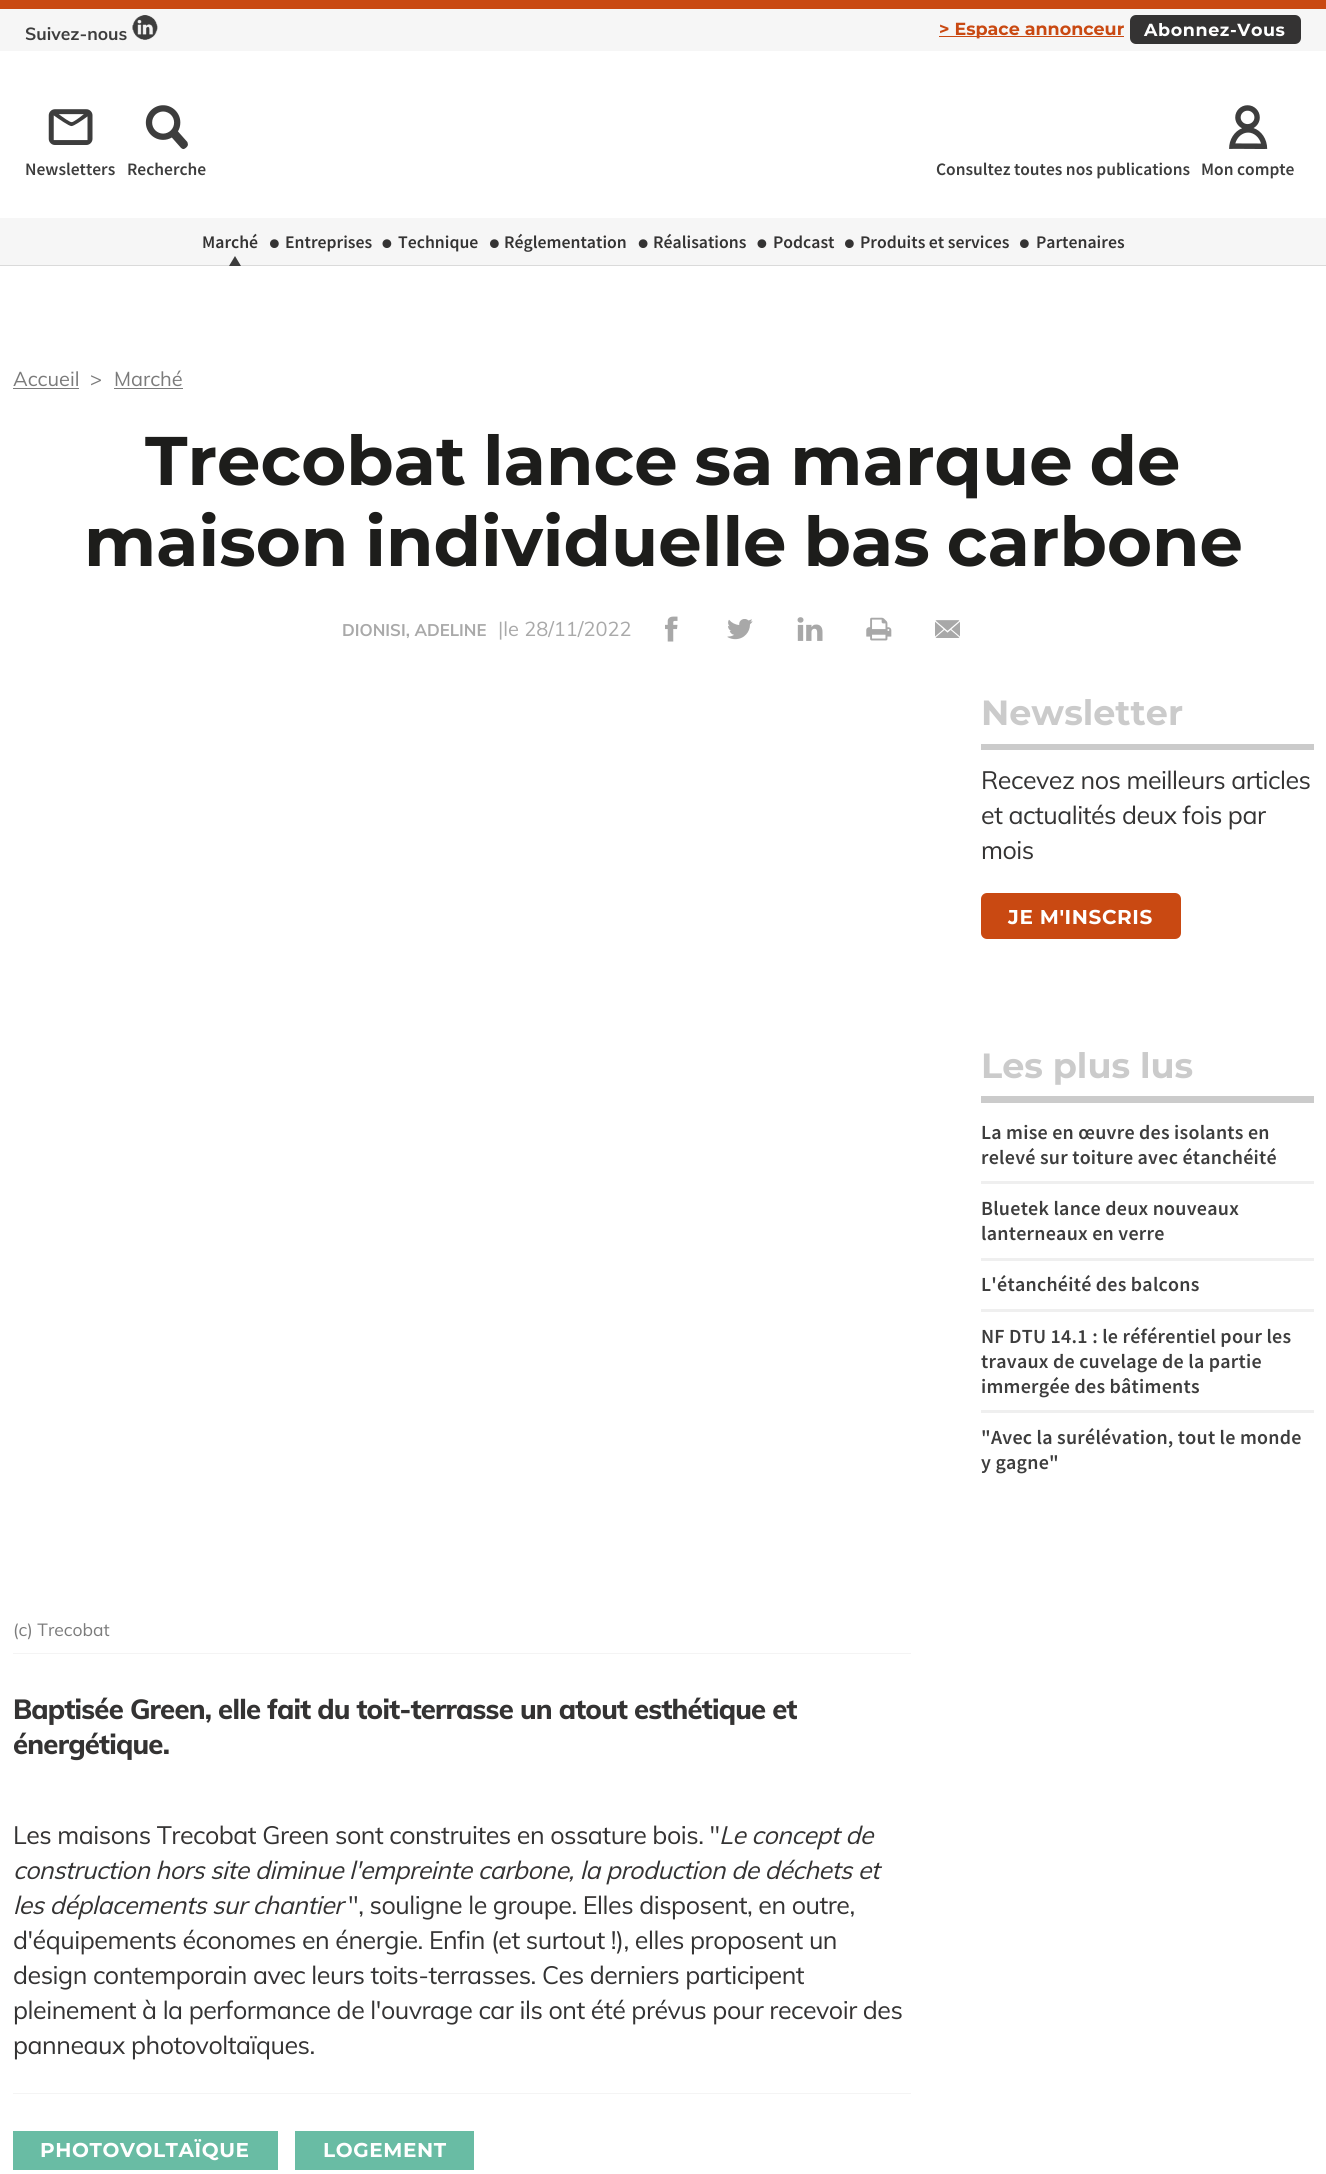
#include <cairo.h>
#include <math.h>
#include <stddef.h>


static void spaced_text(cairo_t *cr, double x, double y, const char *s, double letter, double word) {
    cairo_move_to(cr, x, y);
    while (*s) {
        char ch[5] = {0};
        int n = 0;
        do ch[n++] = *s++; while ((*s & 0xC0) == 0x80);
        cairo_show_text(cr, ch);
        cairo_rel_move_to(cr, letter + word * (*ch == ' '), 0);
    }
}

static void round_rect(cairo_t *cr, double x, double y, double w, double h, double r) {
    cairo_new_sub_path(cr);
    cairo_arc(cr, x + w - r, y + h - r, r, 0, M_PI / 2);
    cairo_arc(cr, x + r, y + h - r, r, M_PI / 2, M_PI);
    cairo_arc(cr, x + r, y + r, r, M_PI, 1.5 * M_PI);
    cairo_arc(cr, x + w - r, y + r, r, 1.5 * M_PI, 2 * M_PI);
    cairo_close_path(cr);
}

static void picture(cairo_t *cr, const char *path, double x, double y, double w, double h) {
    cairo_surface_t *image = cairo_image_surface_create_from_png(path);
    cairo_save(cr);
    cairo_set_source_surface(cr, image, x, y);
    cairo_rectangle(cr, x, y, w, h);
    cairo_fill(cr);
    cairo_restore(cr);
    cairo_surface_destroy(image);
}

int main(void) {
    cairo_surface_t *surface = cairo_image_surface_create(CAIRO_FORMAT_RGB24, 1326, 2174);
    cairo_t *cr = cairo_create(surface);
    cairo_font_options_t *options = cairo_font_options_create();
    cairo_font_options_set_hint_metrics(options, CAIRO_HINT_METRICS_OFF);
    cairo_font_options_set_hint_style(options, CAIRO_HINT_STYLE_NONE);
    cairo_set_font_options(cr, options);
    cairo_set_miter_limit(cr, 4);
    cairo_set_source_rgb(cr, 1, 1, 1);
    cairo_paint(cr);
    cairo_set_source_rgb(cr, 0.788, 0.286, 0.071);
    cairo_rectangle(cr, 0, 0, 1326, 9);
    cairo_fill(cr);
    cairo_set_source_rgb(cr, 0.961, 0.961, 0.961);
    cairo_rectangle(cr, 0, 9, 1326, 42);
    cairo_fill(cr);
    cairo_select_font_face(cr, "Muli", CAIRO_FONT_SLANT_NORMAL, CAIRO_FONT_WEIGHT_BOLD);
    cairo_set_font_size(cr, 17.5);
    cairo_set_source_rgb(cr, 0.239, 0.239, 0.239);
    cairo_move_to(cr, 25, 40);
    cairo_show_text(cr, "Suivez-nous");
    picture(cr, "img1.png", 132, 15, 26, 25);
    cairo_set_source_rgb(cr, 0.788, 0.286, 0.071);
    cairo_rectangle(cr, 939, 36, 185, 1);
    cairo_fill(cr);
    cairo_select_font_face(cr, "Montserrat", CAIRO_FONT_SLANT_NORMAL, CAIRO_FONT_WEIGHT_BOLD);
    cairo_move_to(cr, 939, 35);
    cairo_show_text(cr, "> Espace annonceur");
    cairo_set_source_rgb(cr, 0.204, 0.2, 0.2);
    round_rect(cr, 1130, 15, 171, 29, 6);
    cairo_fill(cr);
    cairo_set_source_rgb(cr, 1, 1, 1);
    spaced_text(cr, 1144, 36, "Abonnez-Vous", 0.6, 0);
    picture(cr, "img2.png", 48, 109, 45, 36);
    cairo_select_font_face(cr, "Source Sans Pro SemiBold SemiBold", CAIRO_FONT_SLANT_NORMAL, CAIRO_FONT_WEIGHT_NORMAL);
    cairo_set_source_rgb(cr, 0.239, 0.239, 0.239);
    cairo_move_to(cr, 25, 175);
    cairo_show_text(cr, "Newsletters");
    picture(cr, "img3.png", 145, 105, 43, 45);
    cairo_move_to(cr, 127, 175);
    cairo_show_text(cr, "Recherche");
    cairo_move_to(cr, 936, 175);
    cairo_show_text(cr, "Consultez toutes nos publications");
    picture(cr, "img4.png", 1229, 105, 39, 44);
    cairo_move_to(cr, 1201, 175);
    cairo_show_text(cr, "Mon compte");
    cairo_set_source_rgb(cr, 0.961, 0.961, 0.961);
    cairo_rectangle(cr, 0, 218, 1326, 47);
    cairo_fill(cr);
    cairo_set_source_rgb(cr, 0.855, 0.855, 0.855);
    cairo_rectangle(cr, 0, 265, 1326, 1);
    cairo_fill(cr);
    cairo_set_font_size(cr, 17.75);
    cairo_set_source_rgb(cr, 0.204, 0.2, 0.2);
    cairo_move_to(cr, 202, 248);
    cairo_show_text(cr, "Marché");
    cairo_set_source_rgb(cr, 0.239, 0.239, 0.239);
    cairo_new_path(cr);
    cairo_move_to(cr, 229, 266);
    cairo_line_to(cr, 241, 266);
    cairo_line_to(cr, 235, 256);
    cairo_close_path(cr);
    cairo_fill(cr);
    picture(cr, "img5.png", 270, 239, 9, 9);
    cairo_set_source_rgb(cr, 0.204, 0.2, 0.2);
    cairo_move_to(cr, 285, 248);
    cairo_show_text(cr, "Entreprises");
    picture(cr, "img6.png", 382, 239, 10, 9);
    cairo_move_to(cr, 398, 248);
    cairo_show_text(cr, "Technique");
    picture(cr, "img5.png", 490, 239, 9, 9);
    cairo_move_to(cr, 504, 248);
    cairo_show_text(cr, "Réglementation");
    picture(cr, "img7.png", 638, 239, 10, 9);
    cairo_move_to(cr, 653, 248);
    cairo_show_text(cr, "Réalisations");
    picture(cr, "img6.png", 757, 239, 10, 9);
    cairo_move_to(cr, 773, 248);
    cairo_show_text(cr, "Podcast");
    picture(cr, "img5.png", 845, 239, 9, 9);
    cairo_move_to(cr, 860, 248);
    cairo_show_text(cr, "Produits et services");
    picture(cr, "img5.png", 1020, 239, 9, 9);
    cairo_move_to(cr, 1036, 248);
    cairo_show_text(cr, "Partenaires");
    cairo_select_font_face(cr, "Muli", CAIRO_FONT_SLANT_NORMAL, CAIRO_FONT_WEIGHT_NORMAL);
    cairo_set_font_size(cr, 20);
    cairo_set_source_rgb(cr, 0.482, 0.482, 0.482);
    cairo_move_to(cr, 13, 386);
    cairo_show_text(cr, "Accueil");
    cairo_rectangle(cr, 13, 388, 66, 1);
    cairo_fill(cr);
    cairo_move_to(cr, 90, 386);
    cairo_show_text(cr, ">");
    cairo_move_to(cr, 114, 386);
    cairo_show_text(cr, "Marché");
    cairo_rectangle(cr, 114, 388, 69, 1);
    cairo_fill(cr);
    cairo_select_font_face(cr, "Montserrat", CAIRO_FONT_SLANT_NORMAL, CAIRO_FONT_WEIGHT_BOLD);
    cairo_set_font_size(cr, 68.75);
    cairo_set_source_rgb(cr, 0.114, 0.114, 0.106);
    spaced_text(cr, 145, 485, "Trecobat lance sa marque de", 0, -2.5);
    spaced_text(cr, 84, 566, "maison individuelle bas carbone", 0, -2.5);
    cairo_select_font_face(cr, "Muli", CAIRO_FONT_SLANT_NORMAL, CAIRO_FONT_WEIGHT_BOLD);
    cairo_set_font_size(cr, 16.75);
    cairo_set_source_rgb(cr, 0.663, 0.663, 0.663);
    cairo_move_to(cr, 342, 636);
    cairo_show_text(cr, "DIONISI, ADELINE");
    cairo_select_font_face(cr, "Muli", CAIRO_FONT_SLANT_NORMAL, CAIRO_FONT_WEIGHT_NORMAL);
    cairo_set_font_size(cr, 20);
    cairo_move_to(cr, 498, 636);
    cairo_show_text(cr, "|le 28/11/2022");
    picture(cr, "img8.png", 665, 616, 13, 26);
    picture(cr, "img9.png", 727, 619, 26, 21);
    picture(cr, "img10.png", 797, 617, 26, 24);
    picture(cr, "img11.png", 866, 617, 26, 24);
    picture(cr, "img12.png", 935, 620, 25, 18);
    cairo_select_font_face(cr, "Montserrat", CAIRO_FONT_SLANT_NORMAL, CAIRO_FONT_WEIGHT_BOLD);
    cairo_set_font_size(cr, 35);
    cairo_set_source_rgb(cr, 0.796, 0.796, 0.796);
    cairo_move_to(cr, 981, 725);
    cairo_show_text(cr, "Newsletter");
    cairo_rectangle(cr, 981, 744, 333, 6);
    cairo_fill(cr);
    cairo_select_font_face(cr, "Muli", CAIRO_FONT_SLANT_NORMAL, CAIRO_FONT_WEIGHT_NORMAL);
    cairo_set_font_size(cr, 25);
    cairo_set_source_rgb(cr, 0.204, 0.2, 0.2);
    spaced_text(cr, 981, 789, "Recevez nos meilleurs articles", -0.47, 0);
    spaced_text(cr, 981, 824, "et actualités deux fois par", -0.47, 0);
    spaced_text(cr, 981, 859, "mois", -0.47, 0);
    cairo_set_source_rgb(cr, 0.788, 0.286, 0.071);
    round_rect(cr, 981, 893, 200, 46, 6);
    cairo_fill(cr);
    cairo_select_font_face(cr, "Montserrat", CAIRO_FONT_SLANT_NORMAL, CAIRO_FONT_WEIGHT_BOLD);
    cairo_set_font_size(cr, 20);
    cairo_set_source_rgb(cr, 1, 1, 1);
    spaced_text(cr, 1008, 924, "JE M'INSCRIS", 0.6, 0);
    cairo_set_font_size(cr, 35);
    cairo_set_source_rgb(cr, 0.796, 0.796, 0.796);
    cairo_move_to(cr, 981, 1078);
    cairo_show_text(cr, "Les plus lus");
    cairo_rectangle(cr, 981, 1096, 333, 7);
    cairo_fill(cr);
    cairo_set_source_rgb(cr, 0.937, 0.937, 0.937);
    cairo_rectangle(cr, 981, 1181, 333, 3);
    cairo_fill(cr);
    cairo_select_font_face(cr, "Source Sans Pro SemiBold SemiBold", CAIRO_FONT_SLANT_NORMAL, CAIRO_FONT_WEIGHT_NORMAL);
    cairo_set_font_size(cr, 20);
    cairo_set_source_rgb(cr, 0.239, 0.239, 0.239);
    spaced_text(cr, 981, 1139, "La mise en œuvre des isolants en", 0.25, 0);
    spaced_text(cr, 981, 1164, "relevé sur toiture avec étanchéité", 0.25, 0);
    cairo_set_source_rgb(cr, 0.937, 0.937, 0.937);
    cairo_rectangle(cr, 981, 1258, 333, 3);
    cairo_fill(cr);
    cairo_set_source_rgb(cr, 0.239, 0.239, 0.239);
    spaced_text(cr, 981, 1215, "Bluetek lance deux nouveaux", 0.25, 0);
    spaced_text(cr, 981, 1240, "lanterneaux en verre", 0.25, 0);
    cairo_set_source_rgb(cr, 0.937, 0.937, 0.937);
    cairo_rectangle(cr, 981, 1309, 333, 3);
    cairo_fill(cr);
    cairo_set_source_rgb(cr, 0.239, 0.239, 0.239);
    spaced_text(cr, 981, 1291, "L'étanchéité des balcons", 0.25, 0);
    cairo_set_source_rgb(cr, 0.937, 0.937, 0.937);
    cairo_rectangle(cr, 981, 1410, 333, 3);
    cairo_fill(cr);
    cairo_set_source_rgb(cr, 0.239, 0.239, 0.239);
    spaced_text(cr, 981, 1343, "NF DTU 14.1 : le référentiel pour les", 0.25, 0);
    spaced_text(cr, 981, 1368, "travaux de cuvelage de la partie", 0.25, 0);
    spaced_text(cr, 981, 1393, "immergée des bâtiments", 0.25, 0);
    spaced_text(cr, 981, 1444, "\"Avec la surélévation, tout le monde", 0.25, 0);
    spaced_text(cr, 981, 1469, "y gagne\"", 0.25, 0);
    cairo_set_source_rgb(cr, 0.957, 0.957, 0.957);
    cairo_rectangle(cr, 13, 1653, 898, 1);
    cairo_fill(cr);
    cairo_select_font_face(cr, "Muli", CAIRO_FONT_SLANT_NORMAL, CAIRO_FONT_WEIGHT_NORMAL);
    cairo_set_font_size(cr, 17.5);
    cairo_set_source_rgb(cr, 0.482, 0.482, 0.482);
    cairo_move_to(cr, 13, 1636);
    cairo_show_text(cr, "(c) Trecobat");
    cairo_select_font_face(cr, "Muli ExtraBold", CAIRO_FONT_SLANT_NORMAL, CAIRO_FONT_WEIGHT_NORMAL);
    cairo_set_font_size(cr, 27.5);
    cairo_set_source_rgb(cr, 0.204, 0.2, 0.2);
    spaced_text(cr, 13, 1719, "Baptisée Green, elle fait du toit-terrasse un atout esthétique et", -0.8, 0);
    spaced_text(cr, 13, 1754, "énergétique.", -0.8, 0);
    cairo_select_font_face(cr, "Muli", CAIRO_FONT_SLANT_NORMAL, CAIRO_FONT_WEIGHT_NORMAL);
    cairo_set_font_size(cr, 25);
    spaced_text(cr, 13, 1844, "Les maisons Trecobat Green sont construites en ossature bois. \"", -0.47, 0);
    cairo_select_font_face(cr, "Muli", CAIRO_FONT_SLANT_ITALIC, CAIRO_FONT_WEIGHT_NORMAL);
    spaced_text(cr, 719, 1844, "Le concept de", -0.47, 0);
    spaced_text(cr, 13, 1879, "construction hors site diminue l'empreinte carbone, la production de déchets et", -0.47, 0);
    spaced_text(cr, 13, 1914, "les déplacements sur chantier", -0.47, 0);
    cairo_select_font_face(cr, "Muli", CAIRO_FONT_SLANT_NORMAL, CAIRO_FONT_WEIGHT_NORMAL);
    spaced_text(cr, 348, 1914, "\", souligne le groupe. Elles disposent, en outre,", -0.47, 0);
    spaced_text(cr, 13, 1949, "d'équipements économes en énergie. Enfin (et surtout !), elles proposent un", -0.47, 0);
    spaced_text(cr, 13, 1984, "design contemporain avec leurs toits-terrasses. Ces derniers participent", -0.47, 0);
    spaced_text(cr, 13, 2019, "pleinement à la performance de l'ouvrage car ils ont été prévus pour recevoir des", -0.47, 0);
    spaced_text(cr, 13, 2054, "panneaux photovoltaïques.", -0.47, 0);
    cairo_set_source_rgb(cr, 0.957, 0.957, 0.957);
    cairo_rectangle(cr, 13, 2093, 898, 1);
    cairo_fill(cr);
    cairo_set_source_rgb(cr, 0.412, 0.737, 0.643);
    cairo_rectangle(cr, 13, 2131, 265, 39);
    cairo_fill(cr);
    cairo_select_font_face(cr, "Montserrat", CAIRO_FONT_SLANT_NORMAL, CAIRO_FONT_WEIGHT_BOLD);
    cairo_set_font_size(cr, 20);
    cairo_set_source_rgb(cr, 1, 1, 1);
    spaced_text(cr, 40, 2157, "PHOTOVOLTAÏQUE", 0.6, 0);
    cairo_set_source_rgb(cr, 0.412, 0.737, 0.643);
    cairo_rectangle(cr, 295, 2131, 179, 39);
    cairo_fill(cr);
    cairo_set_source_rgb(cr, 1, 1, 1);
    spaced_text(cr, 323, 2157, "LOGEMENT", 0.6, 0);
    cairo_surface_write_to_png(surface, "page.png");
    cairo_font_options_destroy(options);
    cairo_destroy(cr);
    cairo_surface_destroy(surface);
    return 0;
}
